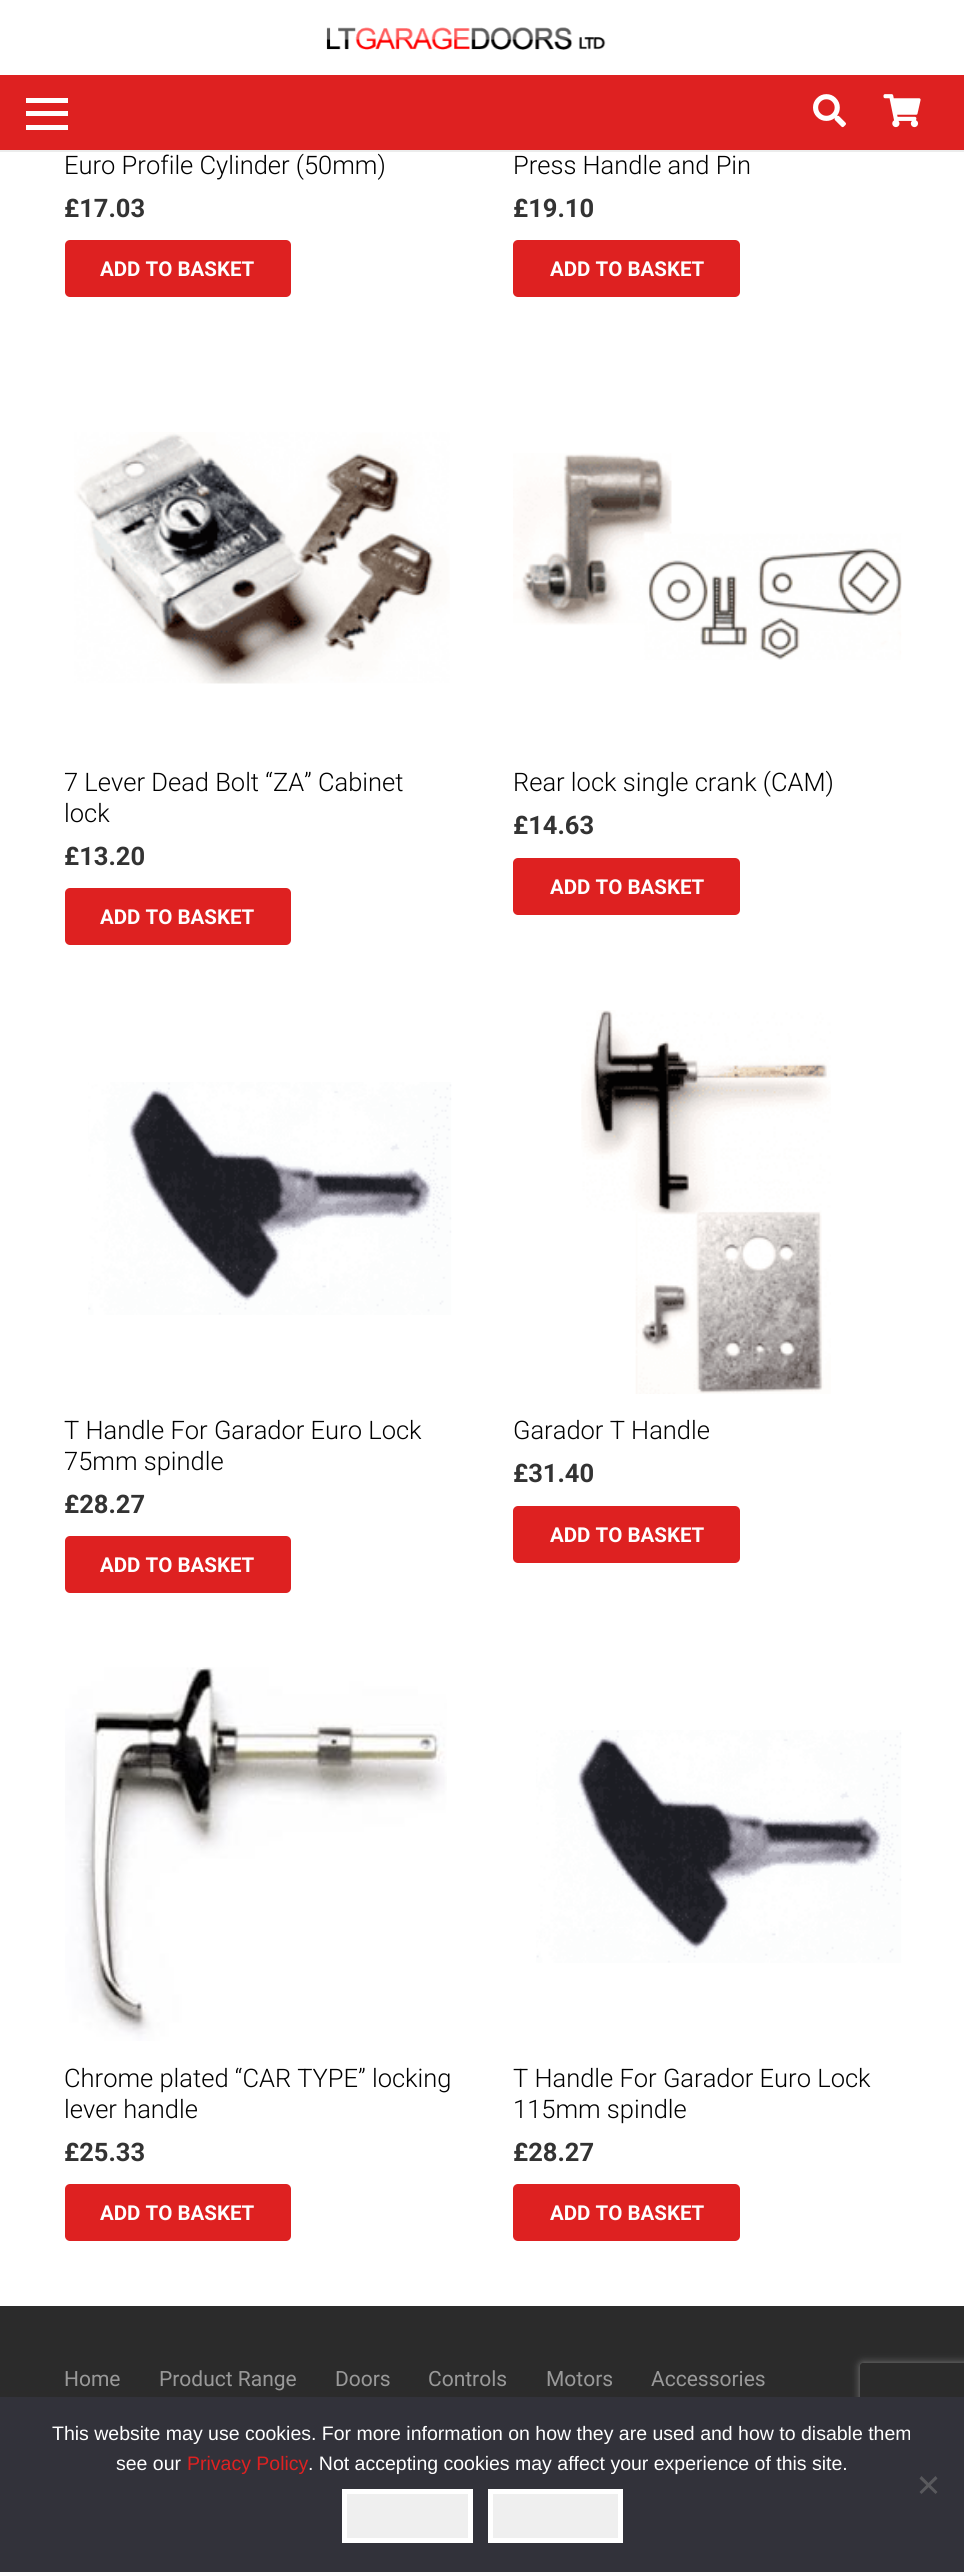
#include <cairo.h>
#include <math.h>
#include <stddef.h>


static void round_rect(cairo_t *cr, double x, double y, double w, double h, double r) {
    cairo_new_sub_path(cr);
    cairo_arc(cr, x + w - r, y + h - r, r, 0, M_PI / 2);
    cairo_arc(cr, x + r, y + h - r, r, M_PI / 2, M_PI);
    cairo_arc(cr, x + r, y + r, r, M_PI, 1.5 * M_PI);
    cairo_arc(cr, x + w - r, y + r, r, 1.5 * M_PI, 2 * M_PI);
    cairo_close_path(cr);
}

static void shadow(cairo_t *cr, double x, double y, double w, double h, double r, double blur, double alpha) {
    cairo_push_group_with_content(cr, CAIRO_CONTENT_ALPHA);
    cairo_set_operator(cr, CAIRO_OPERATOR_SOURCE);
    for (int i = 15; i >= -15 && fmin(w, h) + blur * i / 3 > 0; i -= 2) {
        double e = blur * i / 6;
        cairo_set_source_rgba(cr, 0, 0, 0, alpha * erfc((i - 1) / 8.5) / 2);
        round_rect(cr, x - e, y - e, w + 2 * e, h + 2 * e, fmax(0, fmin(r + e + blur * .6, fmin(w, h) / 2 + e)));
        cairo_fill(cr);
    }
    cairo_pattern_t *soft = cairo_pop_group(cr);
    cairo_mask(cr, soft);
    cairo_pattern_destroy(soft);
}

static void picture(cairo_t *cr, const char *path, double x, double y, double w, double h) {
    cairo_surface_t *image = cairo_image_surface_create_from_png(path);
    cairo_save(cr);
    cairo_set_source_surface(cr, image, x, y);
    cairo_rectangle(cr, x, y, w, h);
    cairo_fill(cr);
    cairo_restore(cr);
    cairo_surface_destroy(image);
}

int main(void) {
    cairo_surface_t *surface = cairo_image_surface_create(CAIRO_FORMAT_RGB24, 964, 2572);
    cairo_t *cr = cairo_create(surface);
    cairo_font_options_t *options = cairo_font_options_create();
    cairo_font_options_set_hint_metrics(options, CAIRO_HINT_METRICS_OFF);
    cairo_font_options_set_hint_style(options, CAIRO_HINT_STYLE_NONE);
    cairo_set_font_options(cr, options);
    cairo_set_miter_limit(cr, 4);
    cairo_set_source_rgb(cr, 1, 1, 1);
    cairo_paint(cr);
    picture(cr, "img1.png", 326, 27, 280, 23);
    cairo_set_source_rgb(cr, 0.922, 0.922, 0.922);
    cairo_new_path(cr);
    cairo_move_to(cr, 0, 150);
    cairo_line_to(cr, 0, 152);
    cairo_line_to(cr, 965, 152);
    cairo_line_to(cr, 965, 77);
    cairo_line_to(cr, 964, 77);
    cairo_line_to(cr, 964, 150);
    cairo_close_path(cr);
    cairo_fill(cr);
    cairo_set_source_rgb(cr, 0.871, 0.129, 0.129);
    cairo_rectangle(cr, 0, 75, 964, 75);
    cairo_fill(cr);
    cairo_set_source_rgb(cr, 1, 1, 1);
    cairo_rectangle(cr, 26, 111, 42, 5);
    cairo_fill(cr);
    cairo_rectangle(cr, 26, 98, 42, 5);
    cairo_fill(cr);
    cairo_rectangle(cr, 26, 125, 42, 5);
    cairo_fill(cr);
    picture(cr, "img2.png", 813, 94, 33, 34);
    picture(cr, "img3.png", 883, 94, 38, 34);
    cairo_select_font_face(cr, "Roboto Light", CAIRO_FONT_SLANT_NORMAL, CAIRO_FONT_WEIGHT_NORMAL);
    cairo_set_font_size(cr, 25.5);
    cairo_set_source_rgb(cr, 0, 0, 0);
    cairo_move_to(cr, 64, 174);
    cairo_show_text(cr, "Euro Profile Cylinder (50mm)");
    cairo_select_font_face(cr, "Roboto", CAIRO_FONT_SLANT_NORMAL, CAIRO_FONT_WEIGHT_BOLD);
    cairo_set_source_rgb(cr, 0.2, 0.2, 0.2);
    cairo_move_to(cr, 64, 217);
    cairo_show_text(cr, "£17.03");
    cairo_set_source_rgb(cr, 0.871, 0.129, 0.129);
    round_rect(cr, 65, 240, 226, 57, 5);
    cairo_fill(cr);
    cairo_set_font_size(cr, 20.5);
    cairo_set_source_rgb(cr, 1, 1, 1);
    cairo_move_to(cr, 100, 276);
    cairo_show_text(cr, "ADD TO BASKET");
    cairo_select_font_face(cr, "Roboto Light", CAIRO_FONT_SLANT_NORMAL, CAIRO_FONT_WEIGHT_NORMAL);
    cairo_set_font_size(cr, 25.5);
    cairo_set_source_rgb(cr, 0, 0, 0);
    cairo_move_to(cr, 513, 174);
    cairo_show_text(cr, "Press Handle and Pin");
    cairo_select_font_face(cr, "Roboto", CAIRO_FONT_SLANT_NORMAL, CAIRO_FONT_WEIGHT_BOLD);
    cairo_set_source_rgb(cr, 0.2, 0.2, 0.2);
    cairo_move_to(cr, 513, 217);
    cairo_show_text(cr, "£19.10");
    cairo_set_source_rgb(cr, 0.871, 0.129, 0.129);
    round_rect(cr, 513, 240, 227, 57, 5);
    cairo_fill(cr);
    cairo_set_font_size(cr, 20.5);
    cairo_set_source_rgb(cr, 1, 1, 1);
    cairo_move_to(cr, 550, 276);
    cairo_show_text(cr, "ADD TO BASKET");
    picture(cr, "img4.png", 74, 432, 376, 252);
    cairo_select_font_face(cr, "Roboto Light", CAIRO_FONT_SLANT_NORMAL, CAIRO_FONT_WEIGHT_NORMAL);
    cairo_set_font_size(cr, 25.5);
    cairo_set_source_rgb(cr, 0, 0, 0);
    cairo_move_to(cr, 64, 791);
    cairo_show_text(cr, "7 Lever Dead Bolt “ZA” Cabinet");
    cairo_move_to(cr, 64, 822);
    cairo_show_text(cr, "lock");
    cairo_select_font_face(cr, "Roboto", CAIRO_FONT_SLANT_NORMAL, CAIRO_FONT_WEIGHT_BOLD);
    cairo_set_source_rgb(cr, 0.2, 0.2, 0.2);
    cairo_move_to(cr, 64, 865);
    cairo_show_text(cr, "£13.20");
    cairo_set_source_rgb(cr, 0.871, 0.129, 0.129);
    round_rect(cr, 65, 888, 226, 57, 5);
    cairo_fill(cr);
    cairo_set_font_size(cr, 20.5);
    cairo_set_source_rgb(cr, 1, 1, 1);
    cairo_move_to(cr, 100, 924);
    cairo_show_text(cr, "ADD TO BASKET");
    picture(cr, "img5.png", 513, 453, 389, 207);
    cairo_select_font_face(cr, "Roboto Light", CAIRO_FONT_SLANT_NORMAL, CAIRO_FONT_WEIGHT_NORMAL);
    cairo_set_font_size(cr, 25.5);
    cairo_set_source_rgb(cr, 0, 0, 0);
    cairo_move_to(cr, 513, 791);
    cairo_show_text(cr, "Rear lock single crank (CAM)");
    cairo_select_font_face(cr, "Roboto", CAIRO_FONT_SLANT_NORMAL, CAIRO_FONT_WEIGHT_BOLD);
    cairo_set_source_rgb(cr, 0.2, 0.2, 0.2);
    cairo_move_to(cr, 513, 834);
    cairo_show_text(cr, "£14.63");
    cairo_set_source_rgb(cr, 0.871, 0.129, 0.129);
    round_rect(cr, 513, 858, 227, 57, 5);
    cairo_fill(cr);
    cairo_set_font_size(cr, 20.5);
    cairo_set_source_rgb(cr, 1, 1, 1);
    cairo_move_to(cr, 550, 894);
    cairo_show_text(cr, "ADD TO BASKET");
    picture(cr, "img6.png", 88, 1082, 364, 233);
    cairo_select_font_face(cr, "Roboto Light", CAIRO_FONT_SLANT_NORMAL, CAIRO_FONT_WEIGHT_NORMAL);
    cairo_set_font_size(cr, 25.5);
    cairo_set_source_rgb(cr, 0, 0, 0);
    cairo_move_to(cr, 64, 1439);
    cairo_show_text(cr, "T Handle For Garador Euro Lock");
    cairo_move_to(cr, 64, 1470);
    cairo_show_text(cr, "75mm spindle");
    cairo_select_font_face(cr, "Roboto", CAIRO_FONT_SLANT_NORMAL, CAIRO_FONT_WEIGHT_BOLD);
    cairo_set_source_rgb(cr, 0.2, 0.2, 0.2);
    cairo_move_to(cr, 64, 1513);
    cairo_show_text(cr, "£28.27");
    cairo_set_source_rgb(cr, 0.871, 0.129, 0.129);
    round_rect(cr, 65, 1536, 226, 57, 5);
    cairo_fill(cr);
    cairo_set_font_size(cr, 20.5);
    cairo_set_source_rgb(cr, 1, 1, 1);
    cairo_move_to(cr, 100, 1572);
    cairo_show_text(cr, "ADD TO BASKET");
    picture(cr, "img7.png", 581, 1010, 250, 384);
    cairo_select_font_face(cr, "Roboto Light", CAIRO_FONT_SLANT_NORMAL, CAIRO_FONT_WEIGHT_NORMAL);
    cairo_set_font_size(cr, 25.5);
    cairo_set_source_rgb(cr, 0, 0, 0);
    cairo_move_to(cr, 513, 1439);
    cairo_show_text(cr, "Garador T Handle");
    cairo_select_font_face(cr, "Roboto", CAIRO_FONT_SLANT_NORMAL, CAIRO_FONT_WEIGHT_BOLD);
    cairo_set_source_rgb(cr, 0.2, 0.2, 0.2);
    cairo_move_to(cr, 513, 1482);
    cairo_show_text(cr, "£31.40");
    cairo_set_source_rgb(cr, 0.871, 0.129, 0.129);
    round_rect(cr, 513, 1506, 227, 57, 5);
    cairo_fill(cr);
    cairo_set_font_size(cr, 20.5);
    cairo_set_source_rgb(cr, 1, 1, 1);
    cairo_move_to(cr, 550, 1542);
    cairo_show_text(cr, "ADD TO BASKET");
    picture(cr, "img8.png", 65, 1667, 382, 374);
    cairo_select_font_face(cr, "Roboto Light", CAIRO_FONT_SLANT_NORMAL, CAIRO_FONT_WEIGHT_NORMAL);
    cairo_set_font_size(cr, 25.5);
    cairo_set_source_rgb(cr, 0, 0, 0);
    cairo_move_to(cr, 64, 2087);
    cairo_show_text(cr, "Chrome plated “CAR TYPE” locking");
    cairo_move_to(cr, 64, 2118);
    cairo_show_text(cr, "lever handle");
    cairo_select_font_face(cr, "Roboto", CAIRO_FONT_SLANT_NORMAL, CAIRO_FONT_WEIGHT_BOLD);
    cairo_set_source_rgb(cr, 0.2, 0.2, 0.2);
    cairo_move_to(cr, 64, 2161);
    cairo_show_text(cr, "£25.33");
    cairo_set_source_rgb(cr, 0.871, 0.129, 0.129);
    round_rect(cr, 65, 2184, 226, 57, 5);
    cairo_fill(cr);
    cairo_set_font_size(cr, 20.5);
    cairo_set_source_rgb(cr, 1, 1, 1);
    cairo_move_to(cr, 100, 2220);
    cairo_show_text(cr, "ADD TO BASKET");
    picture(cr, "img9.png", 536, 1730, 366, 233);
    cairo_select_font_face(cr, "Roboto Light", CAIRO_FONT_SLANT_NORMAL, CAIRO_FONT_WEIGHT_NORMAL);
    cairo_set_font_size(cr, 25.5);
    cairo_set_source_rgb(cr, 0, 0, 0);
    cairo_move_to(cr, 513, 2087);
    cairo_show_text(cr, "T Handle For Garador Euro Lock");
    cairo_move_to(cr, 513, 2118);
    cairo_show_text(cr, "115mm spindle");
    cairo_select_font_face(cr, "Roboto", CAIRO_FONT_SLANT_NORMAL, CAIRO_FONT_WEIGHT_BOLD);
    cairo_set_source_rgb(cr, 0.2, 0.2, 0.2);
    cairo_move_to(cr, 513, 2161);
    cairo_show_text(cr, "£28.27");
    cairo_set_source_rgb(cr, 0.871, 0.129, 0.129);
    round_rect(cr, 513, 2184, 227, 57, 5);
    cairo_fill(cr);
    cairo_set_font_size(cr, 20.5);
    cairo_set_source_rgb(cr, 1, 1, 1);
    cairo_move_to(cr, 550, 2220);
    cairo_show_text(cr, "ADD TO BASKET");
    cairo_set_source_rgb(cr, 0.169, 0.169, 0.169);
    cairo_rectangle(cr, 0, 2306, 964, 91);
    cairo_fill(cr);
    cairo_select_font_face(cr, "Roboto", CAIRO_FONT_SLANT_NORMAL, CAIRO_FONT_WEIGHT_NORMAL);
    cairo_set_font_size(cr, 21);
    cairo_set_source_rgb(cr, 0.6, 0.6, 0.6);
    cairo_move_to(cr, 64, 2386);
    cairo_show_text(cr, "Home");
    cairo_move_to(cr, 159, 2386);
    cairo_show_text(cr, "Product Range");
    cairo_move_to(cr, 335, 2386);
    cairo_show_text(cr, "Doors");
    cairo_move_to(cr, 428, 2386);
    cairo_show_text(cr, "Controls");
    cairo_move_to(cr, 546, 2386);
    cairo_show_text(cr, "Motors");
    cairo_move_to(cr, 651, 2386);
    cairo_show_text(cr, "Accessories");
    cairo_save(cr);
    cairo_set_fill_rule(cr, CAIRO_FILL_RULE_EVEN_ODD);
    cairo_new_path(cr);
    cairo_move_to(cr, 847, 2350);
    cairo_line_to(cr, 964, 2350);
    cairo_line_to(cr, 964, 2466);
    cairo_line_to(cr, 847, 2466);
    cairo_close_path(cr);
    cairo_move_to(cr, 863, 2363);
    cairo_line_to(cr, 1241, 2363);
    cairo_curve_to(cr, 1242.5, 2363, 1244, 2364.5, 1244, 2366);
    cairo_line_to(cr, 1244, 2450);
    cairo_curve_to(cr, 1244, 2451.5, 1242.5, 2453, 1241, 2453);
    cairo_line_to(cr, 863, 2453);
    cairo_curve_to(cr, 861.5, 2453, 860, 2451.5, 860, 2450);
    cairo_line_to(cr, 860, 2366);
    cairo_curve_to(cr, 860, 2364.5, 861.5, 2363, 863, 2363);
    cairo_close_path(cr);
    cairo_clip(cr);
    cairo_set_source_rgb(cr, 0.502, 0.502, 0.502);
    shadow(cr, 860, 2363, 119, 90, 3, 4, 1);
    cairo_restore(cr);
    cairo_set_source_rgb(cr, 0.196, 0.196, 0.227);
    cairo_rectangle(cr, 0, 2397, 964, 175);
    cairo_fill(cr);
    cairo_select_font_face(cr, "Liberation Sans", CAIRO_FONT_SLANT_NORMAL, CAIRO_FONT_WEIGHT_NORMAL);
    cairo_set_font_size(cr, 19.5);
    cairo_set_source_rgb(cr, 1, 1, 1);
    cairo_move_to(cr, 52, 2440);
    cairo_show_text(cr, "This website may use cookies. For more information on how they are used and how to disable them");
    cairo_move_to(cr, 116, 2470);
    cairo_show_text(cr, "see our");
    cairo_set_source_rgb(cr, 0.871, 0.129, 0.129);
    cairo_move_to(cr, 187, 2470);
    cairo_show_text(cr, "Privacy Policy");
    cairo_set_source_rgb(cr, 1, 1, 1);
    cairo_move_to(cr, 308, 2470);
    cairo_show_text(cr, ". Not accepting cookies may affect your experience of this site.");
    cairo_set_source_rgb(cr, 0.349, 0.349, 0.365);
    cairo_new_path(cr);
    cairo_move_to(cr, 935.5, 2476);
    cairo_line_to(cr, 937.5, 2478.5);
    cairo_line_to(cr, 921.5, 2494);
    cairo_line_to(cr, 919.5, 2492);
    cairo_close_path(cr);
    cairo_fill(cr);
    cairo_new_path(cr);
    cairo_move_to(cr, 919.5, 2478.5);
    cairo_line_to(cr, 921.5, 2476);
    cairo_line_to(cr, 937.5, 2492);
    cairo_line_to(cr, 935.5, 2494);
    cairo_close_path(cr);
    cairo_fill(cr);
    cairo_set_source_rgb(cr, 0.937, 0.937, 0.937);
    cairo_rectangle(cr, 344.5, 2491.5, 126, 49);
    cairo_fill_preserve(cr);
    cairo_set_source_rgb(cr, 1, 1, 1);
    cairo_set_line_width(cr, 5);
    cairo_stroke(cr);
    cairo_set_source_rgb(cr, 0.937, 0.937, 0.937);
    cairo_rectangle(cr, 490.5, 2491.5, 130, 49);
    cairo_fill_preserve(cr);
    cairo_set_source_rgb(cr, 1, 1, 1);
    cairo_stroke(cr);
    cairo_surface_write_to_png(surface, "page.png");
    cairo_font_options_destroy(options);
    cairo_destroy(cr);
    cairo_surface_destroy(surface);
    return 0;
}
